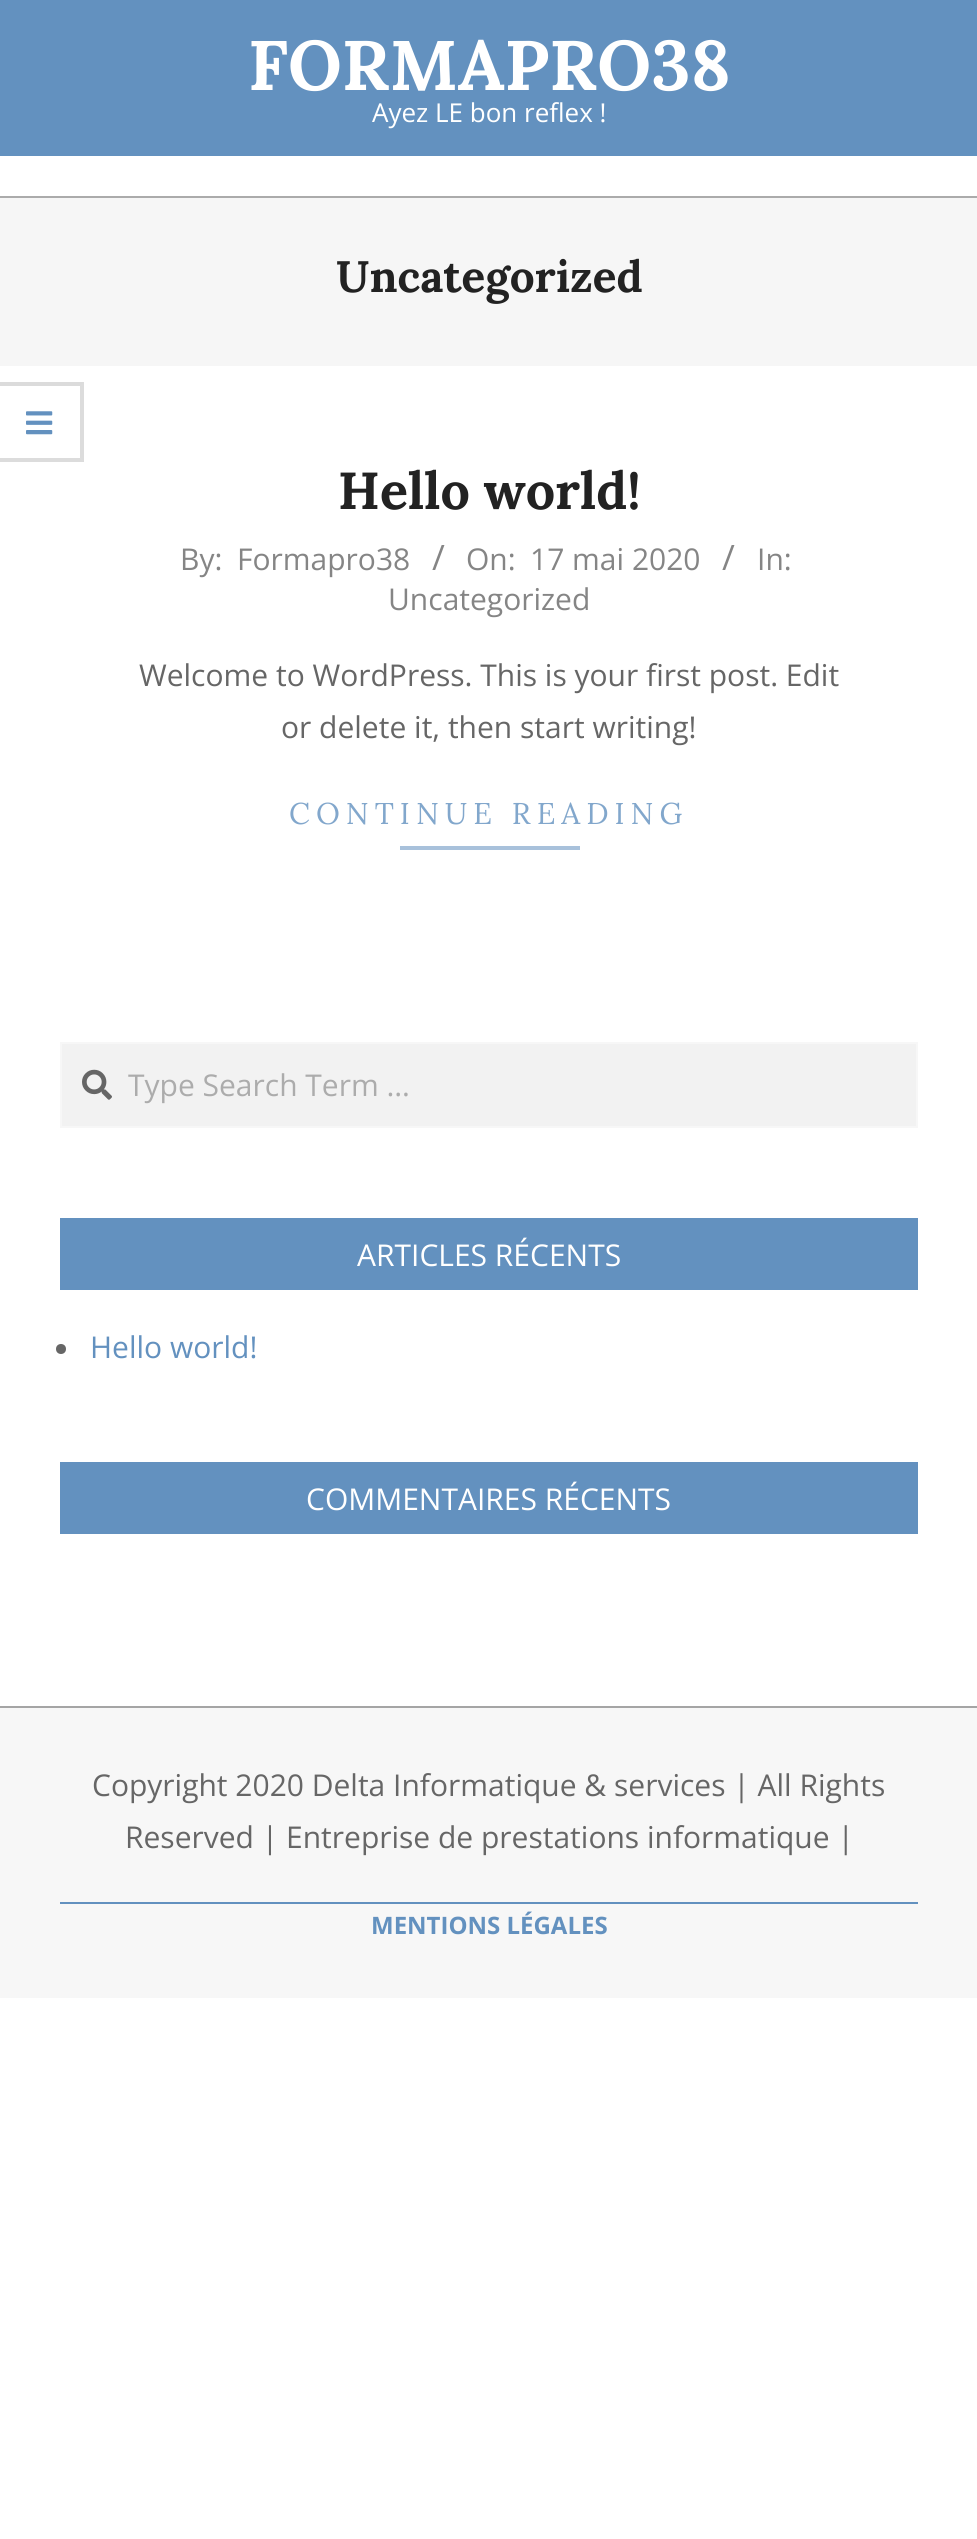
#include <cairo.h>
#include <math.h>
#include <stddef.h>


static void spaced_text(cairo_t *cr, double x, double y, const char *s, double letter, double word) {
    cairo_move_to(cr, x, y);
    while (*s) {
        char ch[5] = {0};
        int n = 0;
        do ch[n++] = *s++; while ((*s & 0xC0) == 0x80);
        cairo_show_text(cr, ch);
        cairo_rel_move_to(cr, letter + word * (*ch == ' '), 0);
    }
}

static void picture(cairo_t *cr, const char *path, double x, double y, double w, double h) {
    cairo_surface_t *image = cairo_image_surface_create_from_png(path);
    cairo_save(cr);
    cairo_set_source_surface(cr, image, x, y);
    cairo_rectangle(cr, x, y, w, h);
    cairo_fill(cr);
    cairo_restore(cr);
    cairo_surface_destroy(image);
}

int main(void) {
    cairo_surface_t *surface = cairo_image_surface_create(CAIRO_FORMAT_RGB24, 977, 2539);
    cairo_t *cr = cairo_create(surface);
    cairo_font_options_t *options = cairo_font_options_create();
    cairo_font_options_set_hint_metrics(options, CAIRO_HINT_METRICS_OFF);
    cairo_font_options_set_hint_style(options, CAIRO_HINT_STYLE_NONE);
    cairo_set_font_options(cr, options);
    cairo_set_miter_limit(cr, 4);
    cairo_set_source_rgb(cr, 1, 1, 1);
    cairo_paint(cr);
    cairo_set_source_rgb(cr, 0.671, 0.671, 0.671);
    cairo_rectangle(cr, 0, 196, 977, 2);
    cairo_fill(cr);
    cairo_set_source_rgb(cr, 0.388, 0.569, 0.749);
    cairo_rectangle(cr, 0, 0, 977, 156);
    cairo_fill(cr);
    cairo_select_font_face(cr, "Lora", CAIRO_FONT_SLANT_NORMAL, CAIRO_FONT_WEIGHT_BOLD);
    cairo_set_font_size(cr, 70);
    cairo_set_source_rgb(cr, 1, 1, 1);
    cairo_move_to(cr, 248, 90);
    cairo_show_text(cr, "FORMAPRO38");
    cairo_select_font_face(cr, "Open Sans", CAIRO_FONT_SLANT_NORMAL, CAIRO_FONT_WEIGHT_NORMAL);
    cairo_set_font_size(cr, 26);
    cairo_move_to(cr, 372, 122);
    cairo_show_text(cr, "Ayez LE bon reflex !");
    cairo_set_source_rgb(cr, 0.859, 0.859, 0.859);
    cairo_new_path(cr);
    cairo_move_to(cr, 0, 382);
    cairo_line_to(cr, 84, 382);
    cairo_line_to(cr, 80, 386);
    cairo_line_to(cr, 0, 386);
    cairo_close_path(cr);
    cairo_fill(cr);
    cairo_set_source_rgba(cr, 0, 0, 0, 0.14);
    cairo_new_path(cr);
    cairo_move_to(cr, 84, 382);
    cairo_line_to(cr, 84, 462);
    cairo_line_to(cr, 80, 458);
    cairo_line_to(cr, 80, 386);
    cairo_close_path(cr);
    cairo_fill(cr);
    cairo_new_path(cr);
    cairo_move_to(cr, 84, 462);
    cairo_line_to(cr, 0, 462);
    cairo_line_to(cr, 0, 458);
    cairo_line_to(cr, 80, 458);
    cairo_close_path(cr);
    cairo_fill(cr);
    picture(cr, "img1.png", 26, 411, 27, 24);
    cairo_set_source_rgb(cr, 0.961, 0.961, 0.961);
    cairo_rectangle(cr, 0, 198, 977, 168);
    cairo_fill(cr);
    cairo_select_font_face(cr, "Lora", CAIRO_FONT_SLANT_NORMAL, CAIRO_FONT_WEIGHT_BOLD);
    cairo_set_font_size(cr, 44);
    cairo_set_source_rgb(cr, 0.133, 0.133, 0.133);
    cairo_move_to(cr, 336, 292);
    cairo_show_text(cr, "Uncategorized");
    cairo_set_font_size(cr, 52);
    cairo_move_to(cr, 338, 509);
    cairo_show_text(cr, "Hello world!");
    cairo_select_font_face(cr, "Open Sans", CAIRO_FONT_SLANT_NORMAL, CAIRO_FONT_WEIGHT_NORMAL);
    cairo_set_font_size(cr, 30);
    cairo_set_source_rgb(cr, 0.522, 0.522, 0.522);
    cairo_move_to(cr, 180, 570);
    cairo_show_text(cr, "By:");
    cairo_move_to(cr, 237, 570);
    cairo_show_text(cr, "Formapro38");
    cairo_set_font_size(cr, 35);
    cairo_move_to(cr, 432, 570);
    cairo_show_text(cr, "/");
    cairo_set_font_size(cr, 30);
    cairo_move_to(cr, 466, 570);
    cairo_show_text(cr, "On:");
    cairo_move_to(cr, 530, 570);
    cairo_show_text(cr, "17 mai 2020");
    cairo_set_font_size(cr, 35);
    cairo_move_to(cr, 722, 570);
    cairo_show_text(cr, "/");
    cairo_set_font_size(cr, 30);
    cairo_move_to(cr, 757, 570);
    cairo_show_text(cr, "In:");
    cairo_move_to(cr, 388, 610);
    cairo_show_text(cr, "Uncategorized");
    cairo_set_source_rgb(cr, 0.4, 0.4, 0.4);
    cairo_move_to(cr, 139, 686);
    cairo_show_text(cr, "Welcome to WordPress. This is your first post. Edit");
    cairo_move_to(cr, 281, 738);
    cairo_show_text(cr, "or delete it, then start writing!");
    cairo_select_font_face(cr, "Lora", CAIRO_FONT_SLANT_NORMAL, CAIRO_FONT_WEIGHT_NORMAL);
    cairo_set_source_rgb(cr, 0.51, 0.655, 0.8);
    spaced_text(cr, 289, 824, "CONTINUE READING", 6, 0);
    cairo_set_source_rgb(cr, 0.659, 0.757, 0.859);
    cairo_rectangle(cr, 400, 846, 180, 4);
    cairo_fill(cr);
    cairo_set_source_rgb(cr, 0.949, 0.949, 0.949);
    cairo_rectangle(cr, 61, 1043, 856, 84);
    cairo_fill_preserve(cr);
    cairo_set_source_rgb(cr, 0.965, 0.965, 0.965);
    cairo_stroke(cr);
    picture(cr, "img2.png", 82, 1069, 30, 31);
    cairo_select_font_face(cr, "Open Sans", CAIRO_FONT_SLANT_NORMAL, CAIRO_FONT_WEIGHT_NORMAL);
    cairo_set_source_rgb(cr, 0.675, 0.675, 0.675);
    cairo_move_to(cr, 128, 1096);
    cairo_show_text(cr, "Type Search Term …");
    cairo_set_source_rgb(cr, 0.388, 0.569, 0.749);
    cairo_rectangle(cr, 60, 1218, 858, 72);
    cairo_fill(cr);
    cairo_set_source_rgb(cr, 1, 1, 1);
    cairo_move_to(cr, 357, 1266);
    cairo_show_text(cr, "ARTICLES RÉCENTS");
    cairo_set_source_rgb(cr, 0.4, 0.4, 0.4);
    cairo_new_path(cr);
    cairo_arc(cr, 61, 1349, 5, 0, 2 * M_PI);
    cairo_fill(cr);
    cairo_set_source_rgb(cr, 0.388, 0.569, 0.749);
    cairo_move_to(cr, 90, 1358);
    cairo_show_text(cr, "Hello world!");
    cairo_rectangle(cr, 60, 1462, 858, 72);
    cairo_fill(cr);
    cairo_set_source_rgb(cr, 1, 1, 1);
    cairo_move_to(cr, 306, 1510);
    cairo_show_text(cr, "COMMENTAIRES RÉCENTS");
    cairo_set_source_rgb(cr, 0.965, 0.965, 0.965);
    cairo_rectangle(cr, 0, 1708, 977, 290);
    cairo_fill(cr);
    cairo_set_source_rgb(cr, 0.647, 0.647, 0.647);
    cairo_rectangle(cr, 0, 1706, 977, 2);
    cairo_fill(cr);
    cairo_set_source_rgb(cr, 0.4, 0.4, 0.4);
    cairo_move_to(cr, 92, 1796);
    cairo_show_text(cr, "Copyright 2020 Delta Informatique & services | All Rights");
    cairo_move_to(cr, 125, 1848);
    cairo_show_text(cr, "Reserved | Entreprise de prestations informatique |");
    cairo_set_source_rgb(cr, 0.388, 0.569, 0.749);
    cairo_rectangle(cr, 60, 1902, 858, 2);
    cairo_fill(cr);
    cairo_select_font_face(cr, "Open Sans", CAIRO_FONT_SLANT_NORMAL, CAIRO_FONT_WEIGHT_BOLD);
    cairo_set_font_size(cr, 24);
    cairo_move_to(cr, 371, 1934);
    cairo_show_text(cr, "MENTIONS LÉGALES");
    cairo_surface_write_to_png(surface, "page.png");
    cairo_font_options_destroy(options);
    cairo_destroy(cr);
    cairo_surface_destroy(surface);
    return 0;
}
